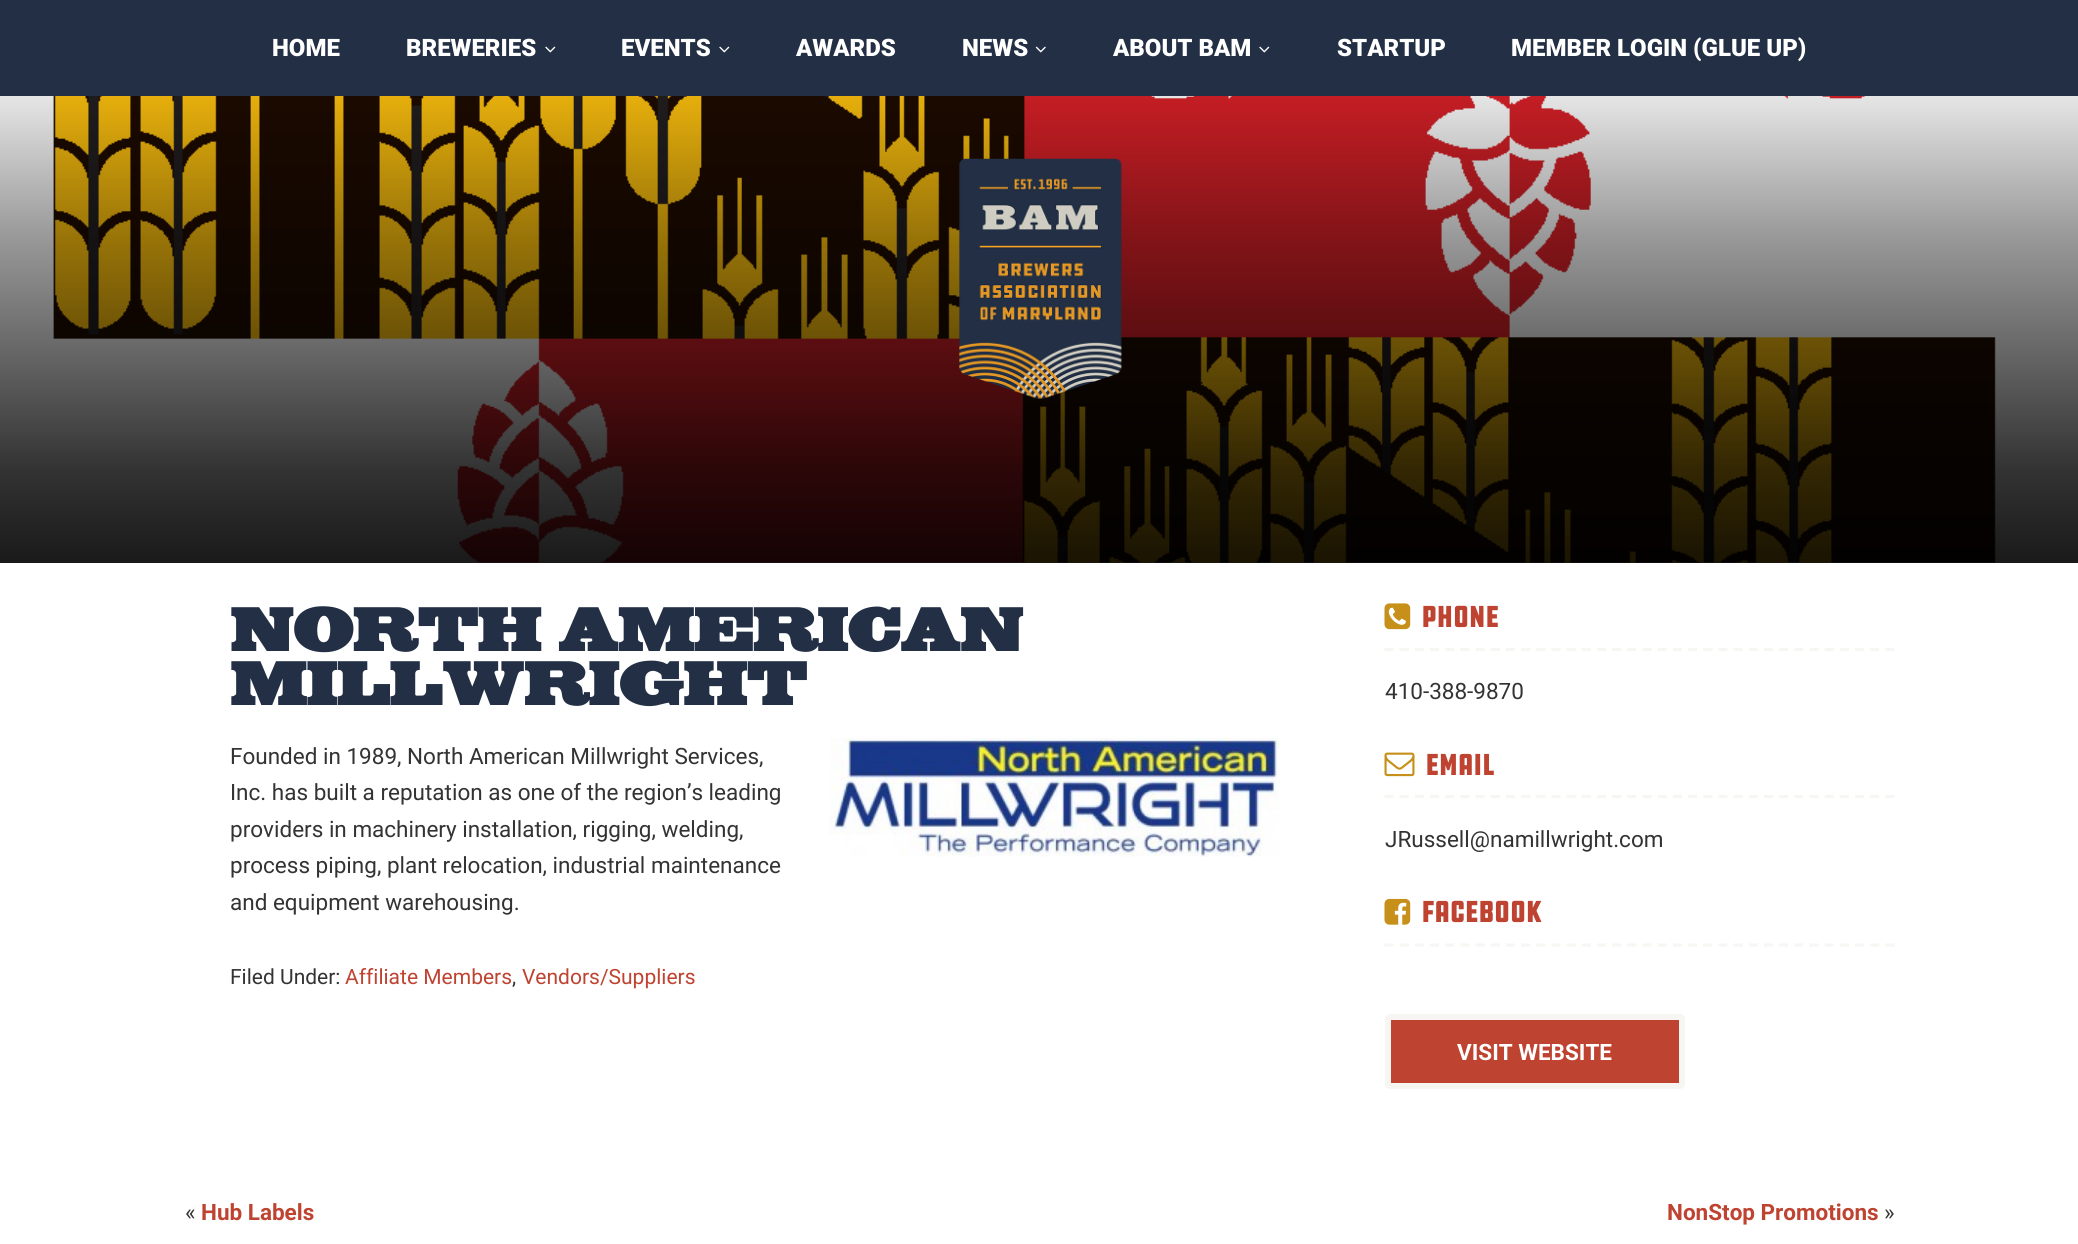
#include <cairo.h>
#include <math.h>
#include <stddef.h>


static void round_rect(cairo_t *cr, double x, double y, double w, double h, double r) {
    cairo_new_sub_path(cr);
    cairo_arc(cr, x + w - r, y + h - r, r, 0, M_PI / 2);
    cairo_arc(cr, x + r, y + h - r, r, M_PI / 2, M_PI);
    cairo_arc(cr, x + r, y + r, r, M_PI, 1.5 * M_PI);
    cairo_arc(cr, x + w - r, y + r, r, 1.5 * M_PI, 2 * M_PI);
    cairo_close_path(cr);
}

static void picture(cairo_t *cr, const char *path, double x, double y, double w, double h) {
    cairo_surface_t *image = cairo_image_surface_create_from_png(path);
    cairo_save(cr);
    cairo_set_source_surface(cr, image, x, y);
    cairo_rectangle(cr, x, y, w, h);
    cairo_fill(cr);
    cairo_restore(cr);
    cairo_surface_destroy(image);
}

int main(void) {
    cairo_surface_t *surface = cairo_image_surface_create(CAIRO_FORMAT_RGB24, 2078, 1244);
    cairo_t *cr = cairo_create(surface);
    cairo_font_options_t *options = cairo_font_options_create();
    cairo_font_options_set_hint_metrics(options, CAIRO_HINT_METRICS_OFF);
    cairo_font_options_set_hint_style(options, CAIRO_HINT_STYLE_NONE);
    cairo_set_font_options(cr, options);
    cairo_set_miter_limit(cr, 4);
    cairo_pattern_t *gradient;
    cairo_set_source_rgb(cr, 1, 1, 1);
    cairo_paint(cr);
    cairo_set_source_rgb(cr, 0.133, 0.184, 0.267);
    cairo_rectangle(cr, 0, 0, 2078, 96);
    cairo_fill(cr);
    cairo_select_font_face(cr, "Roboto Black", CAIRO_FONT_SLANT_NORMAL, CAIRO_FONT_WEIGHT_NORMAL);
    cairo_set_font_size(cr, 24);
    cairo_set_source_rgb(cr, 1, 1, 1);
    cairo_move_to(cr, 272, 56);
    cairo_show_text(cr, "HOME");
    cairo_move_to(cr, 406, 56);
    cairo_show_text(cr, "BREWERIES");
    picture(cr, "img1.png", 545, 46, 11, 7);
    cairo_move_to(cr, 621, 56);
    cairo_show_text(cr, "EVENTS");
    picture(cr, "img1.png", 719, 46, 11, 7);
    cairo_move_to(cr, 796, 56);
    cairo_show_text(cr, "AWARDS");
    cairo_move_to(cr, 962, 56);
    cairo_show_text(cr, "NEWS");
    picture(cr, "img2.png", 1035, 46, 11, 7);
    cairo_move_to(cr, 1113, 56);
    cairo_show_text(cr, "ABOUT BAM");
    picture(cr, "img1.png", 1259, 46, 11, 7);
    cairo_move_to(cr, 1337, 56);
    cairo_show_text(cr, "STARTUP");
    cairo_move_to(cr, 1511, 56);
    cairo_show_text(cr, "MEMBER LOGIN (GLUE UP)");
    picture(cr, "img3.png", 53, 96, 1943, 467);
    gradient = cairo_pattern_create_linear(1040, 96, 1040, 563);
    cairo_pattern_add_color_stop_rgba(gradient, 0, 0, 0, 0, 0.1);
    cairo_pattern_add_color_stop_rgba(gradient, 0.3, 0, 0, 0, 0.4);
    cairo_pattern_add_color_stop_rgba(gradient, 0.8, 0, 0, 0, 0.8);
    cairo_pattern_add_color_stop_rgba(gradient, 1, 0, 0, 0, 0.9);
    cairo_set_source(cr, gradient);
    cairo_pattern_destroy(gradient);
    cairo_rectangle(cr, 0, 96, 2078, 467);
    cairo_fill(cr);
    picture(cr, "img4.png", 959, 158, 163, 241);
    cairo_select_font_face(cr, "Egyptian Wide", CAIRO_FONT_SLANT_NORMAL, CAIRO_FONT_WEIGHT_BOLD);
    cairo_set_font_size(cr, 54);
    cairo_set_source_rgb(cr, 0.133, 0.184, 0.267);
    cairo_move_to(cr, 230, 651);
    cairo_show_text(cr, "NORTH AMERICAN");
    cairo_move_to(cr, 230, 705);
    cairo_show_text(cr, "MILLWRIGHT");
    cairo_select_font_face(cr, "Roboto", CAIRO_FONT_SLANT_NORMAL, CAIRO_FONT_WEIGHT_NORMAL);
    cairo_set_font_size(cr, 22.5);
    cairo_set_source_rgb(cr, 0.2, 0.2, 0.2);
    cairo_move_to(cr, 230, 764);
    cairo_show_text(cr, "Founded in 1989, North American Millwright Services,");
    cairo_move_to(cr, 230, 800);
    cairo_show_text(cr, "Inc. has built a reputation as one of the region’s leading");
    cairo_move_to(cr, 230, 837);
    cairo_show_text(cr, "providers in machinery installation, rigging, welding,");
    cairo_move_to(cr, 230, 873);
    cairo_show_text(cr, "process piping, plant relocation, industrial maintenance");
    cairo_move_to(cr, 230, 910);
    cairo_show_text(cr, "and equipment warehousing.");
    picture(cr, "img5.png", 829, 738, 451, 119);
    cairo_set_font_size(cr, 21);
    cairo_move_to(cr, 230, 984);
    cairo_show_text(cr, "Filed Under:");
    cairo_set_source_rgb(cr, 0.749, 0.263, 0.192);
    cairo_move_to(cr, 345, 984);
    cairo_show_text(cr, "Affiliate Members");
    cairo_set_source_rgb(cr, 0.2, 0.2, 0.2);
    cairo_move_to(cr, 512, 984);
    cairo_show_text(cr, ",");
    cairo_set_source_rgb(cr, 0.749, 0.263, 0.192);
    cairo_move_to(cr, 522, 984);
    cairo_show_text(cr, "Vendors/Suppliers");
    cairo_new_path(cr);
    cairo_move_to(cr, 1384.5, 649.5);
    cairo_line_to(cr, 1894.5, 649.5);
    cairo_set_source_rgb(cr, 0.965, 0.961, 0.953);
    cairo_set_line_width(cr, 3);
    cairo_set_dash(cr, (double[]){9, 6.18}, 2, 0);
    cairo_stroke(cr);
    picture(cr, "img6.png", 1384, 603, 27, 27);
    cairo_select_font_face(cr, "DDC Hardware", CAIRO_FONT_SLANT_NORMAL, CAIRO_FONT_WEIGHT_BOLD);
    cairo_set_font_size(cr, 30);
    cairo_set_source_rgb(cr, 0.749, 0.263, 0.192);
    cairo_move_to(cr, 1421, 627);
    cairo_show_text(cr, "PHONE");
    cairo_select_font_face(cr, "Roboto", CAIRO_FONT_SLANT_NORMAL, CAIRO_FONT_WEIGHT_NORMAL);
    cairo_set_font_size(cr, 22.5);
    cairo_set_source_rgb(cr, 0.2, 0.2, 0.2);
    cairo_move_to(cr, 1385, 699);
    cairo_show_text(cr, "410-388-9870");
    cairo_new_path(cr);
    cairo_move_to(cr, 1384.5, 796.5);
    cairo_line_to(cr, 1894.5, 796.5);
    cairo_set_source_rgb(cr, 0.965, 0.961, 0.953);
    cairo_stroke(cr);
    picture(cr, "img7.png", 1384, 752, 31, 25);
    cairo_select_font_face(cr, "DDC Hardware", CAIRO_FONT_SLANT_NORMAL, CAIRO_FONT_WEIGHT_BOLD);
    cairo_set_font_size(cr, 30);
    cairo_set_source_rgb(cr, 0.749, 0.263, 0.192);
    cairo_move_to(cr, 1425, 775);
    cairo_show_text(cr, "EMAIL");
    cairo_select_font_face(cr, "Roboto", CAIRO_FONT_SLANT_NORMAL, CAIRO_FONT_WEIGHT_NORMAL);
    cairo_set_font_size(cr, 22.5);
    cairo_set_source_rgb(cr, 0.2, 0.2, 0.2);
    cairo_move_to(cr, 1385, 847);
    cairo_show_text(cr, "JRussell@namillwright.com");
    cairo_new_path(cr);
    cairo_move_to(cr, 1384.5, 945);
    cairo_line_to(cr, 1894.5, 945);
    cairo_set_source_rgb(cr, 0.965, 0.961, 0.953);
    cairo_stroke(cr);
    picture(cr, "img8.png", 1384, 898, 27, 27);
    cairo_select_font_face(cr, "DDC Hardware", CAIRO_FONT_SLANT_NORMAL, CAIRO_FONT_WEIGHT_BOLD);
    cairo_set_font_size(cr, 30);
    cairo_set_source_rgb(cr, 0.749, 0.263, 0.192);
    cairo_move_to(cr, 1421, 922);
    cairo_show_text(cr, "FACEBOOK");
    round_rect(cr, 1388, 1017, 294, 69, 2);
    cairo_fill_preserve(cr);
    cairo_set_source_rgb(cr, 0.965, 0.961, 0.953);
    cairo_set_line_width(cr, 6);
    cairo_set_dash(cr, NULL, 0, 0);
    cairo_stroke(cr);
    cairo_select_font_face(cr, "Roboto", CAIRO_FONT_SLANT_NORMAL, CAIRO_FONT_WEIGHT_BOLD);
    cairo_set_font_size(cr, 22.5);
    cairo_set_source_rgb(cr, 1, 1, 1);
    cairo_move_to(cr, 1457, 1060);
    cairo_show_text(cr, "VISIT WEBSITE");
    cairo_select_font_face(cr, "Roboto", CAIRO_FONT_SLANT_NORMAL, CAIRO_FONT_WEIGHT_NORMAL);
    cairo_set_source_rgb(cr, 0.2, 0.2, 0.2);
    cairo_move_to(cr, 185, 1220);
    cairo_show_text(cr, "«");
    cairo_select_font_face(cr, "Roboto", CAIRO_FONT_SLANT_NORMAL, CAIRO_FONT_WEIGHT_BOLD);
    cairo_set_source_rgb(cr, 0.749, 0.263, 0.192);
    cairo_move_to(cr, 201, 1220);
    cairo_show_text(cr, "Hub Labels");
    cairo_move_to(cr, 1667, 1220);
    cairo_show_text(cr, "NonStop Promotions");
    cairo_select_font_face(cr, "Roboto", CAIRO_FONT_SLANT_NORMAL, CAIRO_FONT_WEIGHT_NORMAL);
    cairo_set_source_rgb(cr, 0.2, 0.2, 0.2);
    cairo_move_to(cr, 1884, 1220);
    cairo_show_text(cr, "»");
    cairo_surface_write_to_png(surface, "page.png");
    cairo_font_options_destroy(options);
    cairo_destroy(cr);
    cairo_surface_destroy(surface);
    return 0;
}
